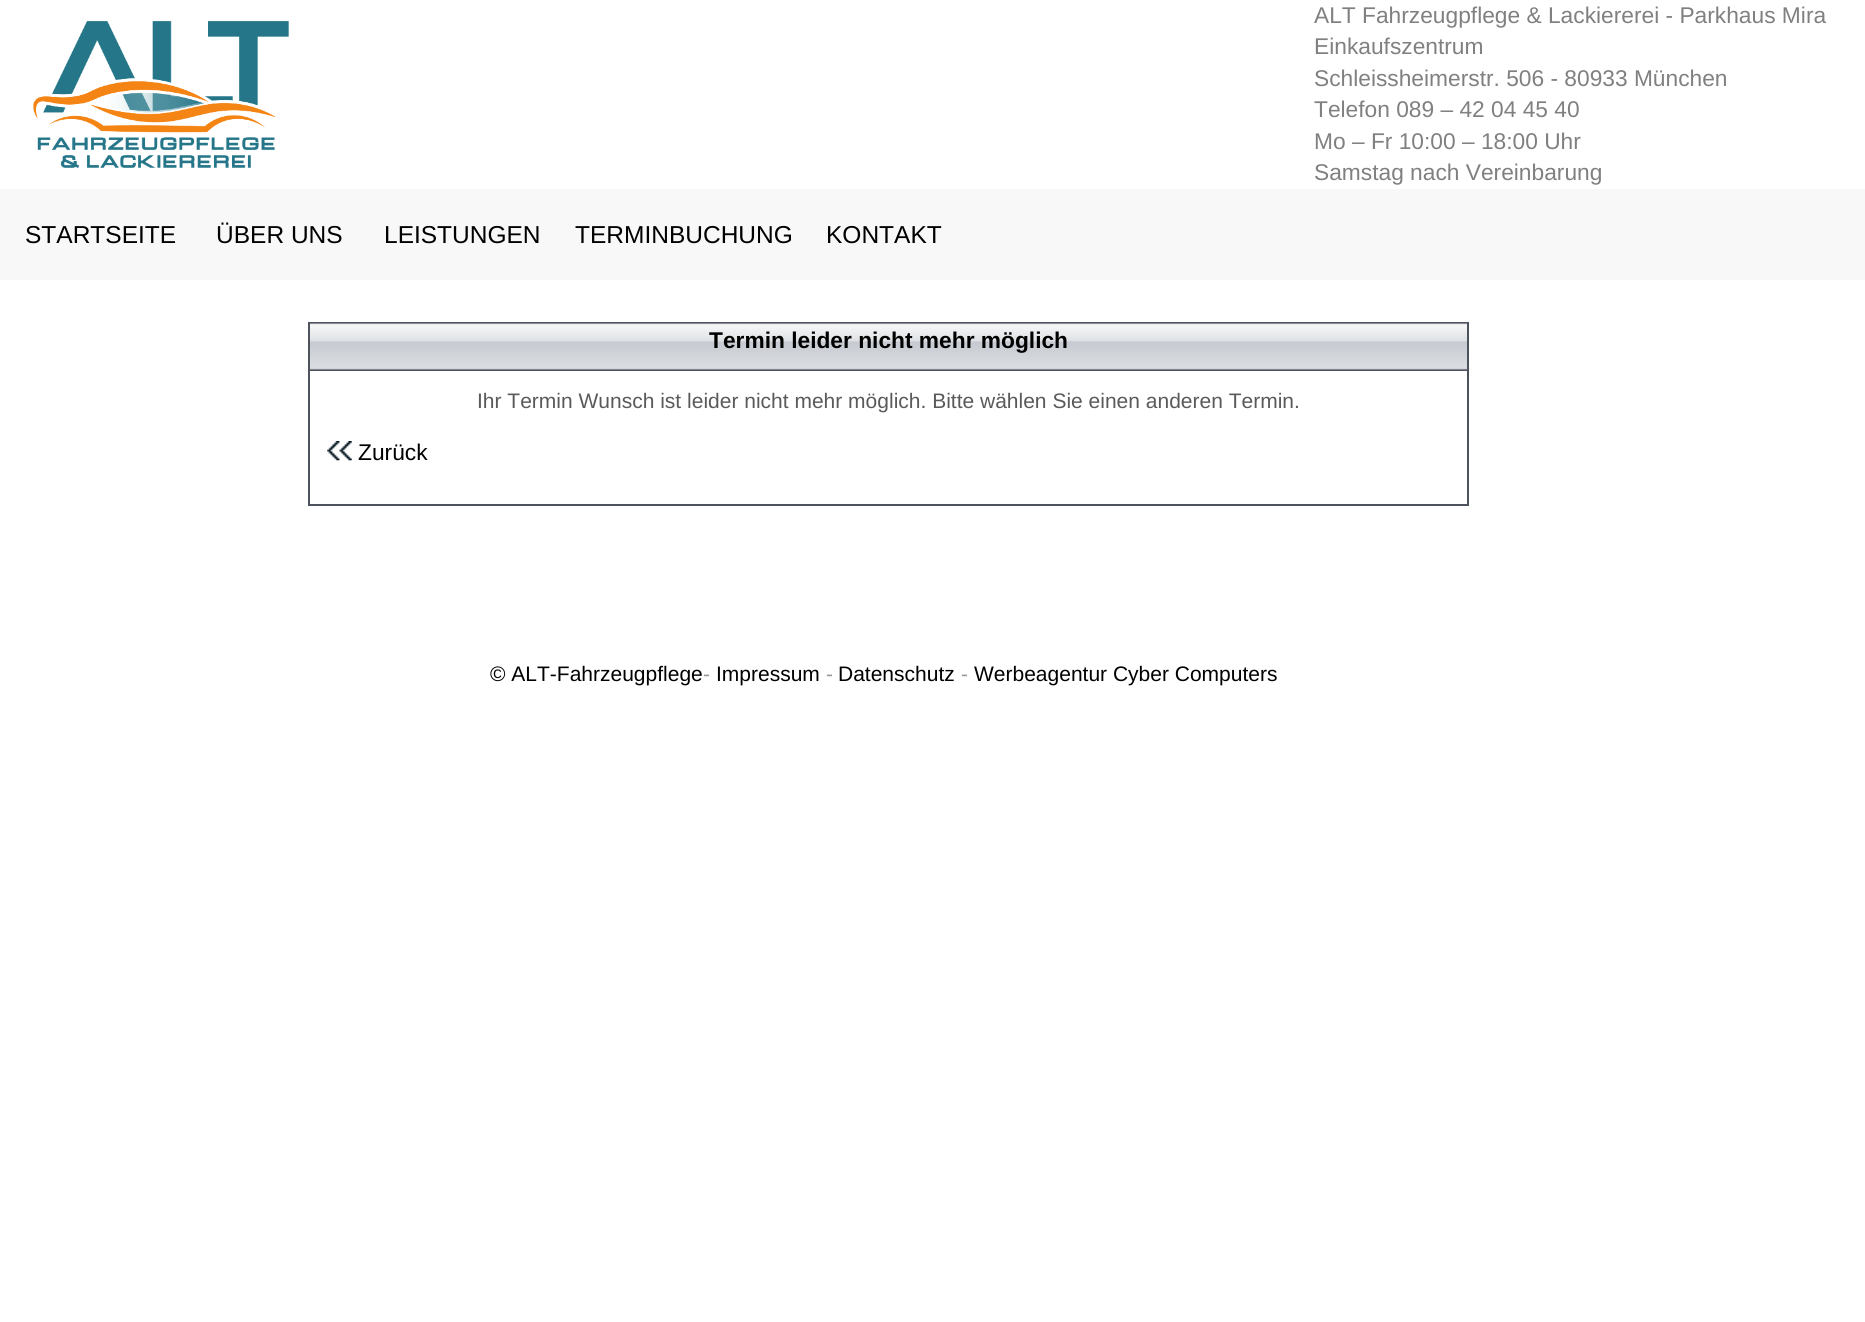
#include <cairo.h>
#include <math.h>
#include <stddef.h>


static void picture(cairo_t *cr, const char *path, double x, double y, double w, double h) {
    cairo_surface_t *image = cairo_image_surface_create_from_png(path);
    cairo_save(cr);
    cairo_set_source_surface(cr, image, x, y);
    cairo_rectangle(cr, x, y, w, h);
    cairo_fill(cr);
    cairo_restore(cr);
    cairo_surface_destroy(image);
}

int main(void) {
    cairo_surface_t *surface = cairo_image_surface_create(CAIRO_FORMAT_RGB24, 1865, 1322);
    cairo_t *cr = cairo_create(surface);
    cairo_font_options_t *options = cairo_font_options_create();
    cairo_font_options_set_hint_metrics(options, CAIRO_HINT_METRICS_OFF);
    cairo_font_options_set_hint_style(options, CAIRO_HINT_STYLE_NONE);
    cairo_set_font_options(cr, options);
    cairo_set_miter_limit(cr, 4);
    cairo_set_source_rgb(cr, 1, 1, 1);
    cairo_paint(cr);
    picture(cr, "img1.png", 33, 21, 256, 147);
    cairo_select_font_face(cr, "Liberation Sans", CAIRO_FONT_SLANT_NORMAL, CAIRO_FONT_WEIGHT_NORMAL);
    cairo_set_font_size(cr, 22.75);
    cairo_set_source_rgb(cr, 0.502, 0.502, 0.502);
    cairo_move_to(cr, 1314, 23);
    cairo_show_text(cr, "ALT Fahrzeugpflege & Lackiererei - Parkhaus Mira");
    cairo_move_to(cr, 1314, 54);
    cairo_show_text(cr, "Einkaufszentrum");
    cairo_move_to(cr, 1314, 86);
    cairo_show_text(cr, "Schleissheimerstr. 506 - 80933 München");
    cairo_move_to(cr, 1314, 117);
    cairo_show_text(cr, "Telefon 089 – 42 04 45 40");
    cairo_move_to(cr, 1314, 149);
    cairo_show_text(cr, "Mo – Fr 10:00 – 18:00 Uhr");
    cairo_move_to(cr, 1314, 180);
    cairo_show_text(cr, "Samstag nach Vereinbarung");
    cairo_set_source_rgb(cr, 0.969, 0.969, 0.969);
    cairo_rectangle(cr, 0, 189, 1865, 91);
    cairo_fill(cr);
    cairo_set_font_size(cr, 24.5);
    cairo_set_source_rgb(cr, 0, 0, 0);
    cairo_move_to(cr, 25, 243);
    cairo_show_text(cr, "STARTSEITE");
    cairo_move_to(cr, 216, 243);
    cairo_show_text(cr, "ÜBER UNS");
    cairo_move_to(cr, 384, 243);
    cairo_show_text(cr, "LEISTUNGEN");
    cairo_move_to(cr, 575, 243);
    cairo_show_text(cr, "TERMINBUCHUNG");
    cairo_move_to(cr, 826, 243);
    cairo_show_text(cr, "KONTAKT");
    picture(cr, "img2.png", 310, 322, 1157, 49);
    cairo_set_source_rgb(cr, 0.298, 0.325, 0.361);
    cairo_rectangle(cr, 1467, 322, 2, 184);
    cairo_fill(cr);
    cairo_rectangle(cr, 308, 322, 2, 49);
    cairo_fill(cr);
    cairo_select_font_face(cr, "Liberation Sans", CAIRO_FONT_SLANT_NORMAL, CAIRO_FONT_WEIGHT_BOLD);
    cairo_set_font_size(cr, 22.75);
    cairo_set_source_rgb(cr, 0, 0, 0);
    cairo_move_to(cr, 709, 348);
    cairo_show_text(cr, "Termin leider nicht mehr möglich");
    cairo_set_source_rgb(cr, 0.298, 0.325, 0.361);
    cairo_rectangle(cr, 308, 504, 1160, 2);
    cairo_fill(cr);
    cairo_rectangle(cr, 308, 371, 2, 135);
    cairo_fill(cr);
    cairo_select_font_face(cr, "Liberation Sans", CAIRO_FONT_SLANT_NORMAL, CAIRO_FONT_WEIGHT_NORMAL);
    cairo_set_font_size(cr, 21);
    cairo_set_source_rgb(cr, 0.353, 0.353, 0.353);
    cairo_move_to(cr, 477, 408);
    cairo_show_text(cr, "Ihr Termin Wunsch ist leider nicht mehr möglich. Bitte wählen Sie einen anderen Termin.");
    picture(cr, "img3.png", 327, 441, 25, 20);
    cairo_set_font_size(cr, 22.75);
    cairo_set_source_rgb(cr, 0, 0, 0);
    cairo_move_to(cr, 358, 460);
    cairo_show_text(cr, "Zurück");
    cairo_set_font_size(cr, 21);
    cairo_move_to(cr, 490, 681);
    cairo_show_text(cr, "© ALT-Fahrzeugpflege");
    cairo_set_source_rgb(cr, 0.6, 0.6, 0.6);
    cairo_move_to(cr, 703, 681);
    cairo_show_text(cr, "-");
    cairo_set_source_rgb(cr, 0, 0, 0);
    cairo_move_to(cr, 716, 681);
    cairo_show_text(cr, "Impressum");
    cairo_set_source_rgb(cr, 0.6, 0.6, 0.6);
    cairo_move_to(cr, 826, 681);
    cairo_show_text(cr, "-");
    cairo_set_source_rgb(cr, 0, 0, 0);
    cairo_move_to(cr, 838, 681);
    cairo_show_text(cr, "Datenschutz");
    cairo_set_source_rgb(cr, 0.6, 0.6, 0.6);
    cairo_move_to(cr, 961, 681);
    cairo_show_text(cr, "-");
    cairo_set_source_rgb(cr, 0, 0, 0);
    cairo_move_to(cr, 974, 681);
    cairo_show_text(cr, "Werbeagentur Cyber Computers");
    cairo_surface_write_to_png(surface, "page.png");
    cairo_font_options_destroy(options);
    cairo_destroy(cr);
    cairo_surface_destroy(surface);
    return 0;
}
